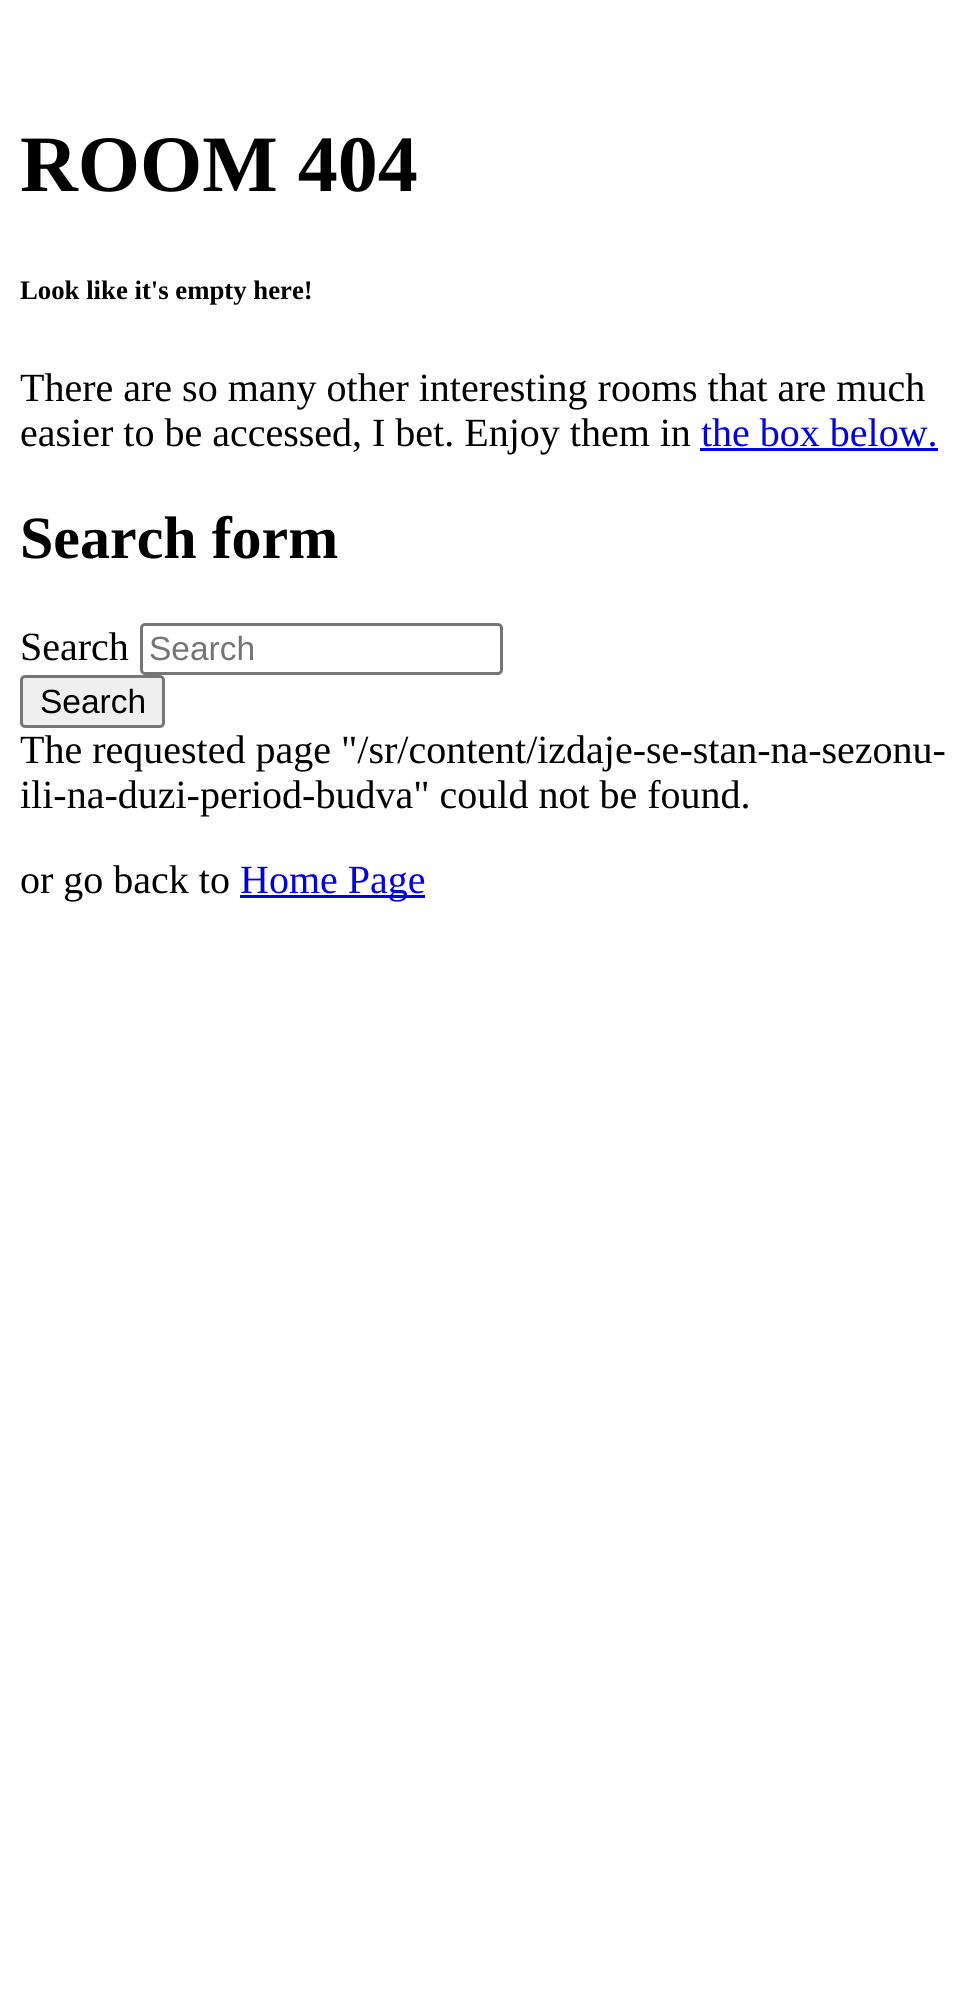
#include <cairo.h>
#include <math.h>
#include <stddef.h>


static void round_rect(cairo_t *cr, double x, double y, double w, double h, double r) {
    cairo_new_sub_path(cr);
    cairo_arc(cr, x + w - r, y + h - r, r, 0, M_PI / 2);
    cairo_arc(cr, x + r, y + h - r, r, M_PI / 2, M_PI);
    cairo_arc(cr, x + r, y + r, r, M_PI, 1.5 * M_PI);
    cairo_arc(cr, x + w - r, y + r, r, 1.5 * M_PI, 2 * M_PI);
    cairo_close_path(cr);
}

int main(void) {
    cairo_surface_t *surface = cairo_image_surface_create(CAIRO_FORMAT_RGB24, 968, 2002);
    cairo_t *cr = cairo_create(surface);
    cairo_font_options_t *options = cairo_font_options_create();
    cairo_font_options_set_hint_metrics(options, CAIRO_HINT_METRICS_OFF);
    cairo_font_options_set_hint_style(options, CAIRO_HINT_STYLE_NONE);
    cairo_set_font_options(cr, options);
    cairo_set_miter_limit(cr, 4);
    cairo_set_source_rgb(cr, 1, 1, 1);
    cairo_paint(cr);
    cairo_select_font_face(cr, "Liberation Serif", CAIRO_FONT_SLANT_NORMAL, CAIRO_FONT_WEIGHT_BOLD);
    cairo_set_font_size(cr, 80);
    cairo_set_source_rgb(cr, 0, 0, 0);
    cairo_move_to(cr, 20, 191);
    cairo_show_text(cr, "ROOM 404");
    cairo_set_font_size(cr, 26.75);
    cairo_move_to(cr, 20, 299);
    cairo_show_text(cr, "Look like it's empty here!");
    cairo_select_font_face(cr, "Liberation Serif", CAIRO_FONT_SLANT_NORMAL, CAIRO_FONT_WEIGHT_NORMAL);
    cairo_set_font_size(cr, 40);
    cairo_move_to(cr, 20, 401);
    cairo_show_text(cr, "There are so many other interesting rooms that are much");
    cairo_move_to(cr, 20, 446);
    cairo_show_text(cr, "easier to be accessed, I bet. Enjoy them in");
    cairo_set_source_rgb(cr, 0, 0, 0.933);
    cairo_move_to(cr, 701, 446);
    cairo_show_text(cr, "the box below.");
    cairo_rectangle(cr, 700, 448, 238, 3);
    cairo_fill(cr);
    cairo_select_font_face(cr, "Liberation Serif", CAIRO_FONT_SLANT_NORMAL, CAIRO_FONT_WEIGHT_BOLD);
    cairo_set_font_size(cr, 60);
    cairo_set_source_rgb(cr, 0, 0, 0);
    cairo_move_to(cr, 20, 558);
    cairo_show_text(cr, "Search form");
    cairo_select_font_face(cr, "Liberation Serif", CAIRO_FONT_SLANT_NORMAL, CAIRO_FONT_WEIGHT_NORMAL);
    cairo_set_font_size(cr, 40);
    cairo_move_to(cr, 20, 660);
    cairo_show_text(cr, "Search");
    round_rect(cr, 141.5, 624.5, 360, 49, 3.5);
    cairo_set_source_rgb(cr, 0.463, 0.463, 0.463);
    cairo_set_line_width(cr, 3);
    cairo_stroke(cr);
    cairo_select_font_face(cr, "Liberation Sans", CAIRO_FONT_SLANT_NORMAL, CAIRO_FONT_WEIGHT_NORMAL);
    cairo_set_font_size(cr, 33.5);
    cairo_set_source_rgb(cr, 0.459, 0.459, 0.459);
    cairo_move_to(cr, 149, 660);
    cairo_show_text(cr, "Search");
    cairo_set_source_rgb(cr, 0.937, 0.937, 0.937);
    round_rect(cr, 21.5, 676.5, 142, 50, 3.5);
    cairo_fill_preserve(cr);
    cairo_set_source_rgb(cr, 0.463, 0.463, 0.463);
    cairo_stroke(cr);
    cairo_set_source_rgb(cr, 0, 0, 0);
    cairo_move_to(cr, 40, 713);
    cairo_show_text(cr, "Search");
    cairo_select_font_face(cr, "Liberation Serif", CAIRO_FONT_SLANT_NORMAL, CAIRO_FONT_WEIGHT_NORMAL);
    cairo_set_font_size(cr, 40);
    cairo_move_to(cr, 20, 763);
    cairo_show_text(cr, "The requested page \"/sr/content/izdaje-se-stan-na-sezonu-");
    cairo_move_to(cr, 20, 808);
    cairo_show_text(cr, "ili-na-duzi-period-budva\" could not be found.");
    cairo_move_to(cr, 20, 893);
    cairo_show_text(cr, "or go back to");
    cairo_set_source_rgb(cr, 0, 0, 0.933);
    cairo_rectangle(cr, 240, 895, 185, 3);
    cairo_fill(cr);
    cairo_move_to(cr, 240, 893);
    cairo_show_text(cr, "Home Page");
    cairo_surface_write_to_png(surface, "page.png");
    cairo_font_options_destroy(options);
    cairo_destroy(cr);
    cairo_surface_destroy(surface);
    return 0;
}
